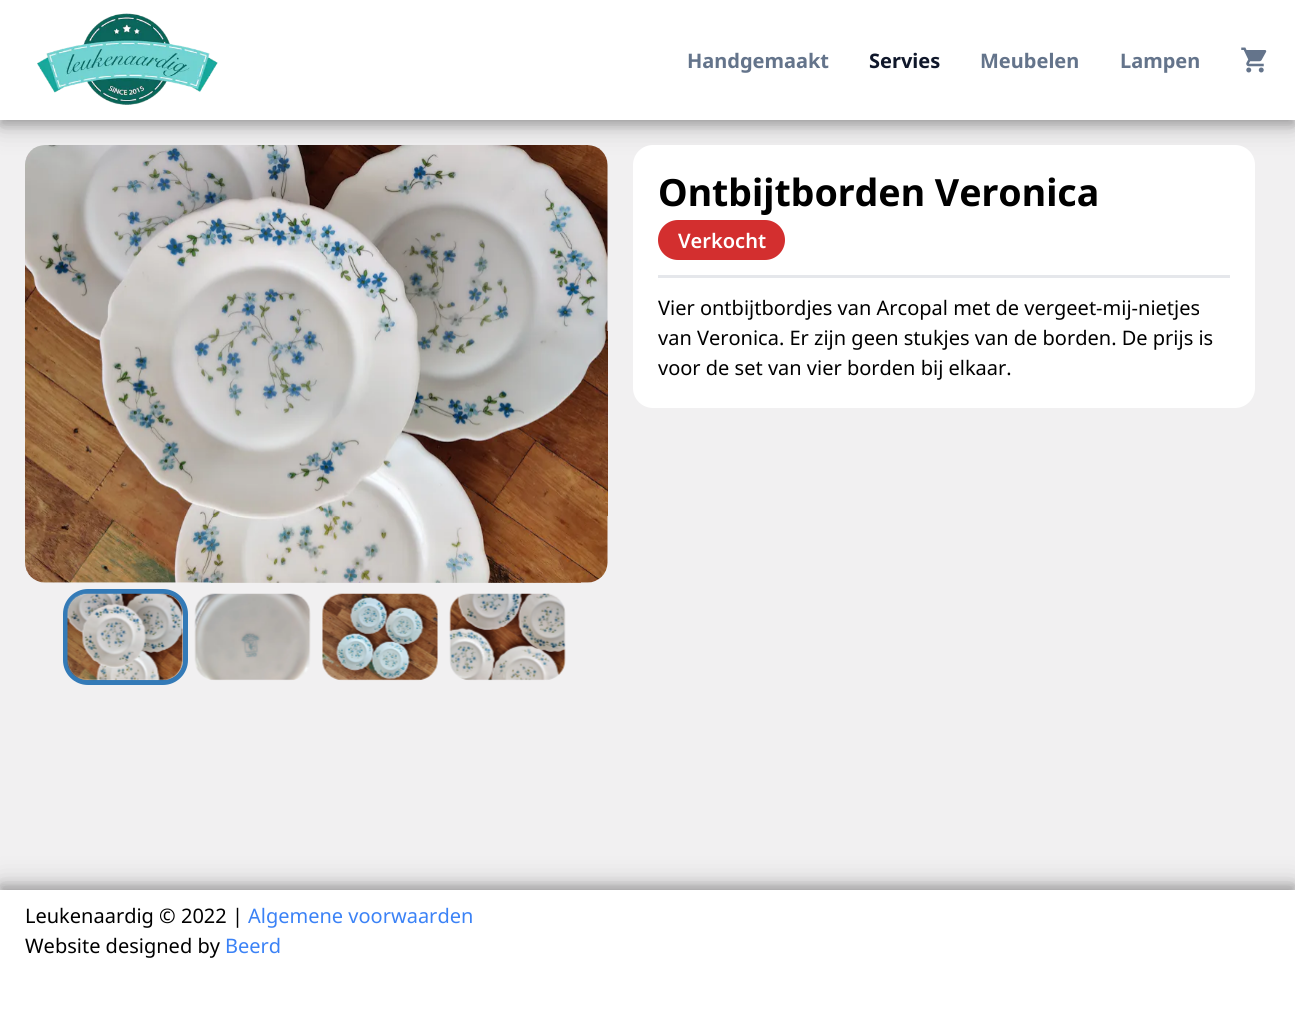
import math
import cairo

surface = cairo.ImageSurface(cairo.FORMAT_RGB24, 1295, 1010)
cr = cairo.Context(surface)
options = cairo.FontOptions()
options.set_hint_metrics(cairo.HINT_METRICS_OFF)
options.set_hint_style(cairo.HINT_STYLE_NONE)
cr.set_font_options(options)
cr.set_miter_limit(4)


def rgb(code):
    cr.set_source_rgb(*(v / 255 for v in bytes.fromhex(code[-6:])))


def rrect(x, y, w, h, r):
    cr.new_sub_path()
    for i, (u, v) in enumerate([(x + w - r, y + h - r), (x + r, y + h - r), (x + r, y + r), (x + w - r, y + r)]):
        cr.arc(u, v, r, i * math.pi / 2, (i + 1) * math.pi / 2)
    cr.close_path()


def soft_shadow(x, y, w, h, r, blur, alpha):
    cr.push_group_with_content(cairo.CONTENT_ALPHA)
    cr.set_operator(cairo.OPERATOR_SOURCE)
    for i in range(15, -16, -2):
        e = blur * i / 6
        if min(w, h) + 2 * e > 0:
            cr.set_source_rgba(0, 0, 0, alpha * math.erfc((i - 1) / 8.5) / 2)
            rrect(x - e, y - e, w + 2 * e, h + 2 * e, max(0, min(r + e + blur * .6, min(w, h) / 2 + e)))
            cr.fill()
    cr.mask(cr.pop_group())


def image(path, x, y, w, h):
    cr.save()
    cr.set_source_surface(cairo.ImageSurface.create_from_png(path), x, y)
    cr.rectangle(x, y, w, h)
    cr.fill()
    cr.restore()


rgb("#f1f0f1")
cr.paint()
rgb("#000000")
soft_shadow(0, 8, 1295, 120, 0, 12.5, 0.19)
soft_shadow(0, 5, 1295, 120, 0, 5, 0.2)
rgb("#ffffff")
cr.rectangle(0, 0, 1295, 120)
cr.fill()
image("img/1.png", 37, 13, 181, 92)
image("img/2.png", 1241, 47, 26, 26)
image("img/3.png", 25, 145, 583, 438)
rrect(65.5, 591.5, 120, 91, 22.5)
rgb("#337ab7")
cr.set_line_width(5)
cr.stroke()
image("img/4.png", 67, 593, 116, 88)
image("img/5.png", 194, 593, 117, 88)
image("img/6.png", 322, 593, 116, 88)
image("img/7.png", 449, 593, 117, 88)
rgb("#ffffff")
rrect(633, 145, 622, 263, 20)
cr.fill()
rgb("#d32f2f")
rrect(658, 220, 127, 40, 20)
cr.fill()
rgb("#e5e7eb")
cr.rectangle(658, 275, 572, 3)
cr.fill()
rgb("#000000")
soft_shadow(0, 883, 1295, 120, 0, 12.5, 0.19)
soft_shadow(0, 885, 1295, 120, 0, 5, 0.2)
rgb("#ffffff")
cr.rectangle(0, 890, 1295, 120)
cr.fill()
cr.select_font_face("Noto Sans", cairo.FONT_SLANT_NORMAL, cairo.FONT_WEIGHT_BOLD)
cr.set_font_size(20)
rgb("#64748b")
cr.move_to(687, 68)
cr.show_text("Handgemaakt")
rgb("#0f172a")
cr.move_to(869, 68)
cr.show_text("Servies")
rgb("#64748b")
cr.move_to(980, 68)
cr.show_text("Meubelen")
cr.move_to(1120, 68)
cr.show_text("Lampen")
cr.set_font_size(37.5)
rgb("#000000")
cr.move_to(658, 206)
cr.show_text("Ontbijtborden Veronica")
cr.select_font_face("Noto Sans SemiBold")
cr.set_font_size(20)
rgb("#ffffff")
cr.move_to(678, 248)
cr.show_text("Verkocht")
cr.select_font_face("Noto Sans")
rgb("#000000")
for x, y, s in [
    (658, 315, "Vier ontbijtbordjes van Arcopal met de vergeet-mij-nietjes"),
    (658, 345, "van Veronica. Er zijn geen stukjes van de borden. De prijs is"),
    (658, 375, "voor de set van vier borden bij elkaar."),
    (25, 923, "Leukenaardig © 2022 |"),
]:
    cr.move_to(x, y)
    cr.show_text(s)
rgb("#3b82f6")
cr.move_to(248, 923)
cr.show_text("Algemene voorwaarden")
rgb("#000000")
cr.move_to(25, 953)
cr.show_text("Website designed by")
rgb("#3b82f6")
cr.move_to(225, 953)
cr.show_text("Beerd")
surface.write_to_png("page.png")
